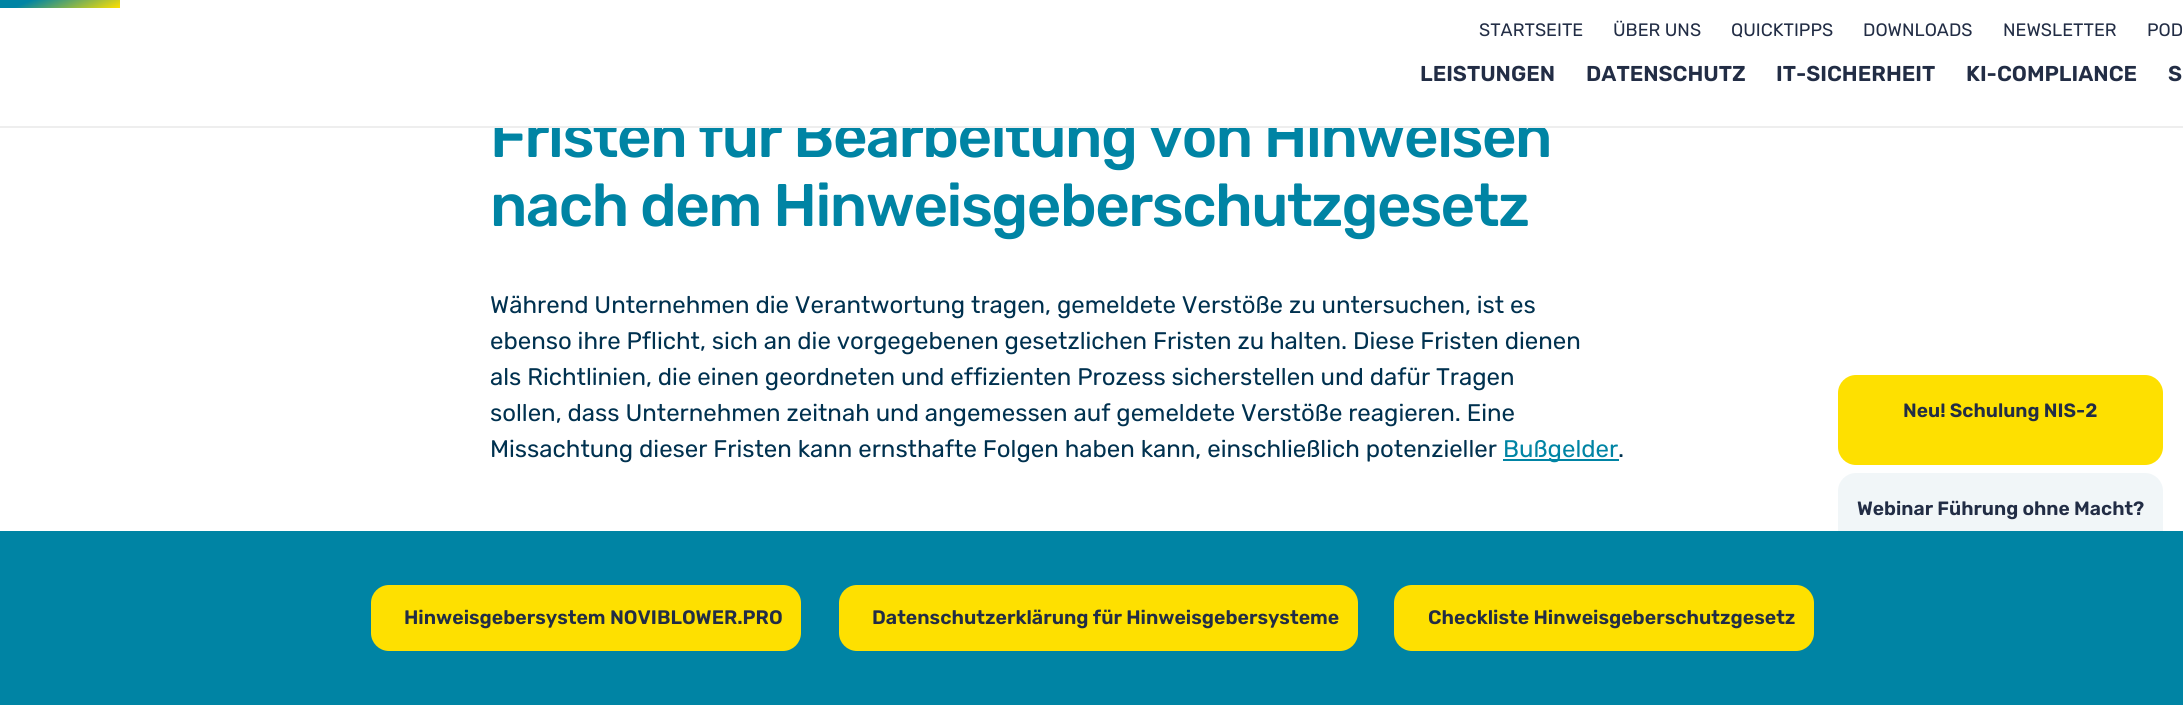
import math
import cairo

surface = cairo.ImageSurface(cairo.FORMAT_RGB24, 2183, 705)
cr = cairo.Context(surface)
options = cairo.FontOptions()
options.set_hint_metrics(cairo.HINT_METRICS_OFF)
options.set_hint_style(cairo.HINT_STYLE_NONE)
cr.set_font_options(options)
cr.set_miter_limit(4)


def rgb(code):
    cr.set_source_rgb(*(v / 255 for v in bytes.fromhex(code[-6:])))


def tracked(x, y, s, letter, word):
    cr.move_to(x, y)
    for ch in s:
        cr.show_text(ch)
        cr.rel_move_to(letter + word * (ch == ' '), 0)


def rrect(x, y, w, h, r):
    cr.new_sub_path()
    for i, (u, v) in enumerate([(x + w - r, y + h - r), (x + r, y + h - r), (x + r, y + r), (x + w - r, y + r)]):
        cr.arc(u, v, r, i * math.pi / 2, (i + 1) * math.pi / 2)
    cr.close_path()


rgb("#ffffff")
cr.paint()
gradient = cairo.LinearGradient(49, -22, 71, 29)
gradient.add_color_stop_rgba(0.24, 0, 0.518, 0.643, 1)
gradient.add_color_stop_rgba(1, 0.996, 0.878, 0, 1)
cr.set_source(gradient)
cr.rectangle(0, 0, 120, 8)
cr.fill()
rgb("#0084a4")
cr.rectangle(1503, 459, 116, 2)
cr.fill()
rgb("#fee000")
rrect(1840.5, 377.5, 320, 85, 15.5)
cr.fill_preserve()
cr.set_line_width(5)
cr.stroke()
rgb("#f1f6f8")
rrect(1840.5, 475.5, 320, 85, 15.5)
cr.fill_preserve()
cr.stroke()
rgb("#0084a4")
cr.rectangle(0, 531, 2183, 174)
cr.fill()
rgb("#fee000")
rrect(373.5, 587.5, 425, 61, 15.5)
cr.fill_preserve()
cr.stroke()
rrect(841.5, 587.5, 514, 61, 15.5)
cr.fill_preserve()
cr.stroke()
rrect(1396.5, 587.5, 415, 61, 15.5)
cr.fill_preserve()
cr.stroke()
cr.select_font_face("Rubik Light")
cr.set_font_size(18)
rgb("#222d45")
for x, y, s in [
    (1479, 36, "STARTSEITE"),
    (1613, 36, "ÜBER UNS"),
    (1731, 36, "QUICKTIPPS"),
    (1863, 36, "DOWNLOADS"),
    (2003, 36, "NEWSLETTER"),
    (2147, 36, "POD"),
]:
    cr.move_to(x, y)
    cr.show_text(s)
cr.select_font_face("Rubik SemiBold")
cr.set_font_size(21.5)
for x, y, s in [
    (1420, 81, "LEISTUNGEN"),
    (1586, 81, "DATENSCHUTZ"),
    (1776, 81, "IT-SICHERHEIT"),
    (1966, 81, "KI-COMPLIANCE"),
    (2168, 81, "S"),
]:
    cr.move_to(x, y)
    cr.show_text(s)
cr.select_font_face("Rubik Medium")
cr.set_font_size(60)
rgb("#0084a4")
tracked(490, 157, "Fristen für Bearbeitung von Hinweisen", -1.5, 0)
rgb("#eeeeee")
cr.rectangle(0, 126, 2183, 2)
cr.fill()
rgb("#ffffff")
cr.rectangle(494, 112, 1048, 14)
cr.fill()
rgb("#0084a4")
tracked(490, 226, "nach dem Hinweisgeberschutzgesetz", -1.5, 0)
cr.select_font_face("Rubik Light")
cr.set_font_size(24)
rgb("#00314f")
for x, y, s in [
    (490, 313, "Während Unternehmen die Verantwortung tragen, gemeldete Verstöße zu untersuchen, ist es"),
    (490, 349, "ebenso ihre Pflicht, sich an die vorgegebenen gesetzlichen Fristen zu halten. Diese Fristen dienen"),
    (490, 385, "als Richtlinien, die einen geordneten und effizienten Prozess sicherstellen und dafür Tragen"),
    (490, 421, "sollen, dass Unternehmen zeitnah und angemessen auf gemeldete Verstöße reagieren. Eine"),
    (490, 457, "Missachtung dieser Fristen kann ernsthafte Folgen haben kann, einschließlich potenzieller"),
]:
    cr.move_to(x, y)
    cr.show_text(s)
rgb("#0084a4")
cr.move_to(1503, 457)
cr.show_text("Bußgelder")
rgb("#00314f")
cr.move_to(1618, 457)
cr.show_text(".")
cr.select_font_face("Rubik SemiBold")
cr.set_font_size(19.25)
rgb("#222d45")
cr.move_to(1903, 417)
cr.show_text("Neu! Schulung NIS-2")
cr.move_to(1857, 515)
cr.show_text("Webinar Führung ohne Macht?")
cr.set_font_size(19.5)
for x, y, s in [
    (404, 624, "Hinweisgebersystem NOVIBLOWER.PRO"),
    (872, 624, "Datenschutzerklärung für Hinweisgebersysteme"),
    (1428, 624, "Checkliste Hinweisgeberschutzgesetz"),
]:
    cr.move_to(x, y)
    cr.show_text(s)
surface.write_to_png("page.png")
